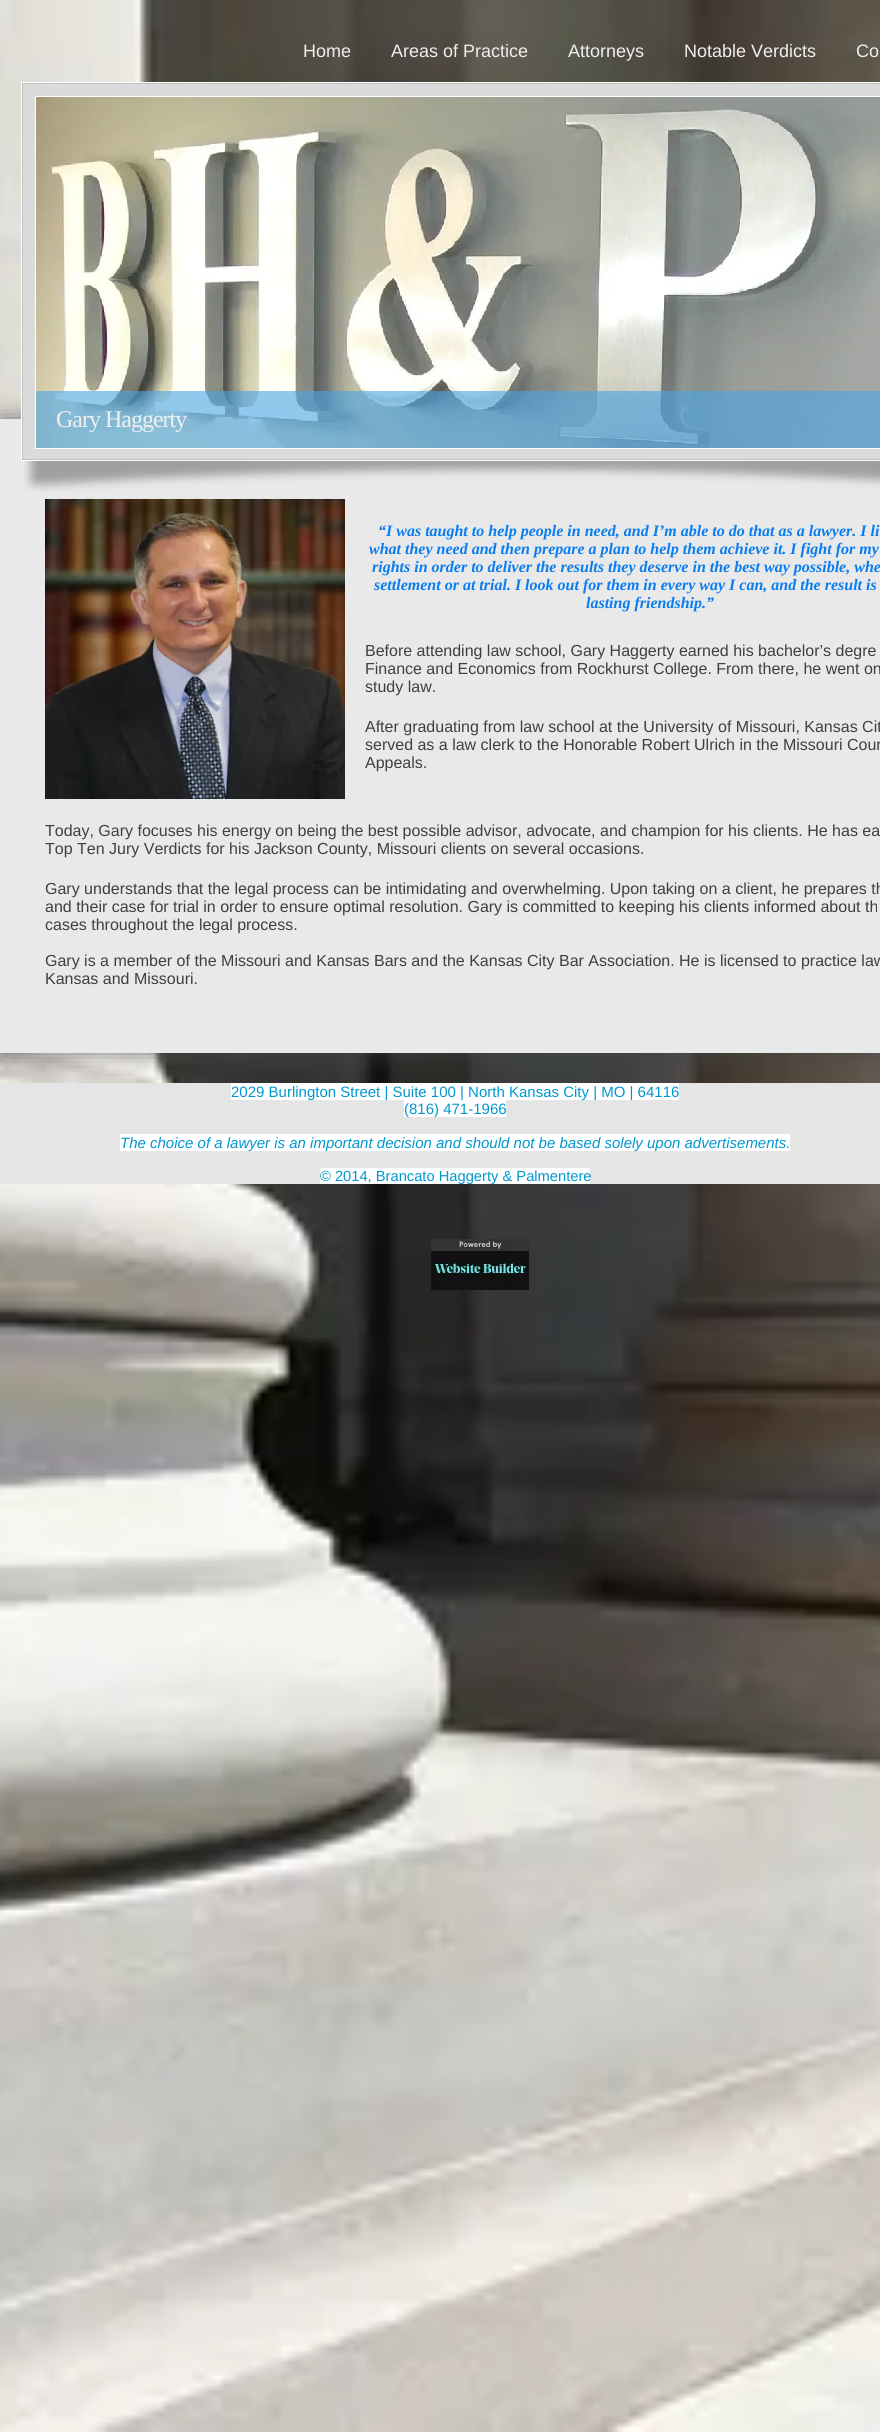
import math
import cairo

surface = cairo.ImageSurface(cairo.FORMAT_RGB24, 880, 2432)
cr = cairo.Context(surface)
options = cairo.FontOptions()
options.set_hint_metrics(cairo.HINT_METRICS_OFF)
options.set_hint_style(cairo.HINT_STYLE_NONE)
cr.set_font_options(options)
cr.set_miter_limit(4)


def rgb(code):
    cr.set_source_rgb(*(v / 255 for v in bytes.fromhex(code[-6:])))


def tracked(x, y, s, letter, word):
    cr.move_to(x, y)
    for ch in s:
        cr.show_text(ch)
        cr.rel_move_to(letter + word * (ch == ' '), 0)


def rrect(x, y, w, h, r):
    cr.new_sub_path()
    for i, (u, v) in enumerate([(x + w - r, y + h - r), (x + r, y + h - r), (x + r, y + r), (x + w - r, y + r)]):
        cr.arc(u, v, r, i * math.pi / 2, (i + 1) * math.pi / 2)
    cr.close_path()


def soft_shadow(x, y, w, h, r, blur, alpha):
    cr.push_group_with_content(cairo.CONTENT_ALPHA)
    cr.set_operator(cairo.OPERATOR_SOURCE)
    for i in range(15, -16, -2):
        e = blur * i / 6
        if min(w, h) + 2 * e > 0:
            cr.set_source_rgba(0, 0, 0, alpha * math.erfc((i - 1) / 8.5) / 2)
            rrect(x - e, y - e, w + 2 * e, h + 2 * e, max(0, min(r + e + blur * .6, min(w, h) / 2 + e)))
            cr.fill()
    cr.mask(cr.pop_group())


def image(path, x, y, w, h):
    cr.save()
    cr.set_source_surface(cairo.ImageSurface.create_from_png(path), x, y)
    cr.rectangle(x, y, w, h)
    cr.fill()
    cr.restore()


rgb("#ffffff")
cr.paint()
image("img/1.png", 0, 0, 880, 2432)
image("img/2.png", 212, 0, 457, 82)
rgb("#e5e5e5")
cr.rectangle(0, 1083, 880, 101)
cr.fill()
rgb("#ffffff")
cr.rectangle(231, 1083, 448, 17)
cr.fill()
rgb("#434548")
soft_shadow(0, 419, 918, 634, 0, 12.5, 0.75)
rgb("#e9e9e9")
cr.rectangle(0, 419, 880, 634)
cr.fill()
rgb("#dbdbdb")
cr.rectangle(22.5, 83.5, 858, 376)
cr.fill_preserve()
rgb("#c1c1c1")
cr.set_line_width(1)
cr.stroke()
cr.rectangle(21.5, 82.5, 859, 378)
rgb("#ffffff")
cr.stroke()
image("img/3.png", 36, 97, 844, 351)
cr.rectangle(35.5, 96.5, 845, 352)
cr.stroke()
cr.set_source_rgba(0.286, 0.651, 0.906, 0.6)
cr.rectangle(36, 391, 844, 57)
cr.fill()
image("img/4.png", 24, 461, 856, 31)
image("img/5.png", 45, 499, 300, 300)
for x, y, w, h, color in [
    (404, 1100, 102, 17, "#ffffff"),
    (120, 1134, 670, 17, "#ffffff"),
    (320, 1168, 270, 16, "#ffffff"),
]:
    rgb(color)
    cr.rectangle(x, y, w, h)
    cr.fill()
image("img/6.png", 431, 1239, 98, 51)
cr.select_font_face("Liberation Sans")
cr.set_font_size(18)
rgb("#efefef")
for x, y, s in [
    (303, 57, "Home"),
    (391, 57, "Areas of Practice"),
    (568, 57, "Attorneys"),
    (684, 57, "Notable Verdicts"),
    (856, 57, "Co"),
]:
    cr.move_to(x, y)
    cr.show_text(s)
cr.select_font_face("Liberation Serif")
cr.set_font_size(24)
tracked(56, 427, "Gary Haggerty", -1, 0)
cr.select_font_face("Liberation Serif", cairo.FONT_SLANT_ITALIC, cairo.FONT_WEIGHT_BOLD)
cr.set_font_size(16)
rgb("#097df0")
for x, y, s in [
    (378, 536, "“I was taught to help people in need, and I’m able to do that as a lawyer. I li"),
    (369, 554, "what they need and then prepare a plan to help them achieve it. I fight for my"),
    (372, 572, "rights in order to deliver the results they deserve in the best way possible, whe"),
    (374, 590, "settlement or at trial. I look out for them in every way I can, and the result is"),
    (586, 608, "lasting friendship.”"),
]:
    cr.move_to(x, y)
    cr.show_text(s)
cr.select_font_face("Liberation Sans")
rgb("#3f3f3f")
for x, y, s in [
    (365, 656, "Before attending law school, Gary Haggerty earned his bachelor’s degre"),
    (365, 674, "Finance and Economics from Rockhurst College. From there, he went on"),
    (365, 692, "study law."),
    (365, 732, "After graduating from law school at the University of Missouri, Kansas Cit"),
    (365, 750, "served as a law clerk to the Honorable Robert Ulrich in the Missouri Cour"),
    (365, 768, "Appeals."),
    (45, 836, "Today, Gary focuses his energy on being the best possible advisor, advocate, and champion for his clients. He has ea"),
    (45, 854, "Top Ten Jury Verdicts for his Jackson County, Missouri clients on several occasions."),
    (45, 894, "Gary understands that the legal process can be intimidating and overwhelming. Upon taking on a client, he prepares th"),
    (45, 912, "and their case for trial in order to ensure optimal resolution. Gary is committed to keeping his clients informed about th"),
    (45, 930, "cases throughout the legal process."),
    (45, 966, "Gary is a member of the Missouri and Kansas Bars and the Kansas City Bar Association. He is licensed to practice law"),
    (45, 984, "Kansas and Missouri."),
]:
    cr.move_to(x, y)
    cr.show_text(s)
cr.set_font_size(15)
rgb("#0097d0")
cr.move_to(231, 1097)
cr.show_text("2029 Burlington Street | Suite 100 | North Kansas City | MO | 64116")
cr.move_to(404, 1114)
cr.show_text("(816) 471-1966")
cr.select_font_face("Liberation Sans", cairo.FONT_SLANT_ITALIC)
cr.move_to(120, 1148)
cr.show_text("The choice of a lawyer is an important decision and should not be based solely upon advertisements.")
cr.select_font_face("Liberation Sans")
cr.set_font_size(14.7)
cr.move_to(320, 1181)
cr.show_text("© 2014, Brancato Haggerty & Palmentere")
surface.write_to_png("page.png")
